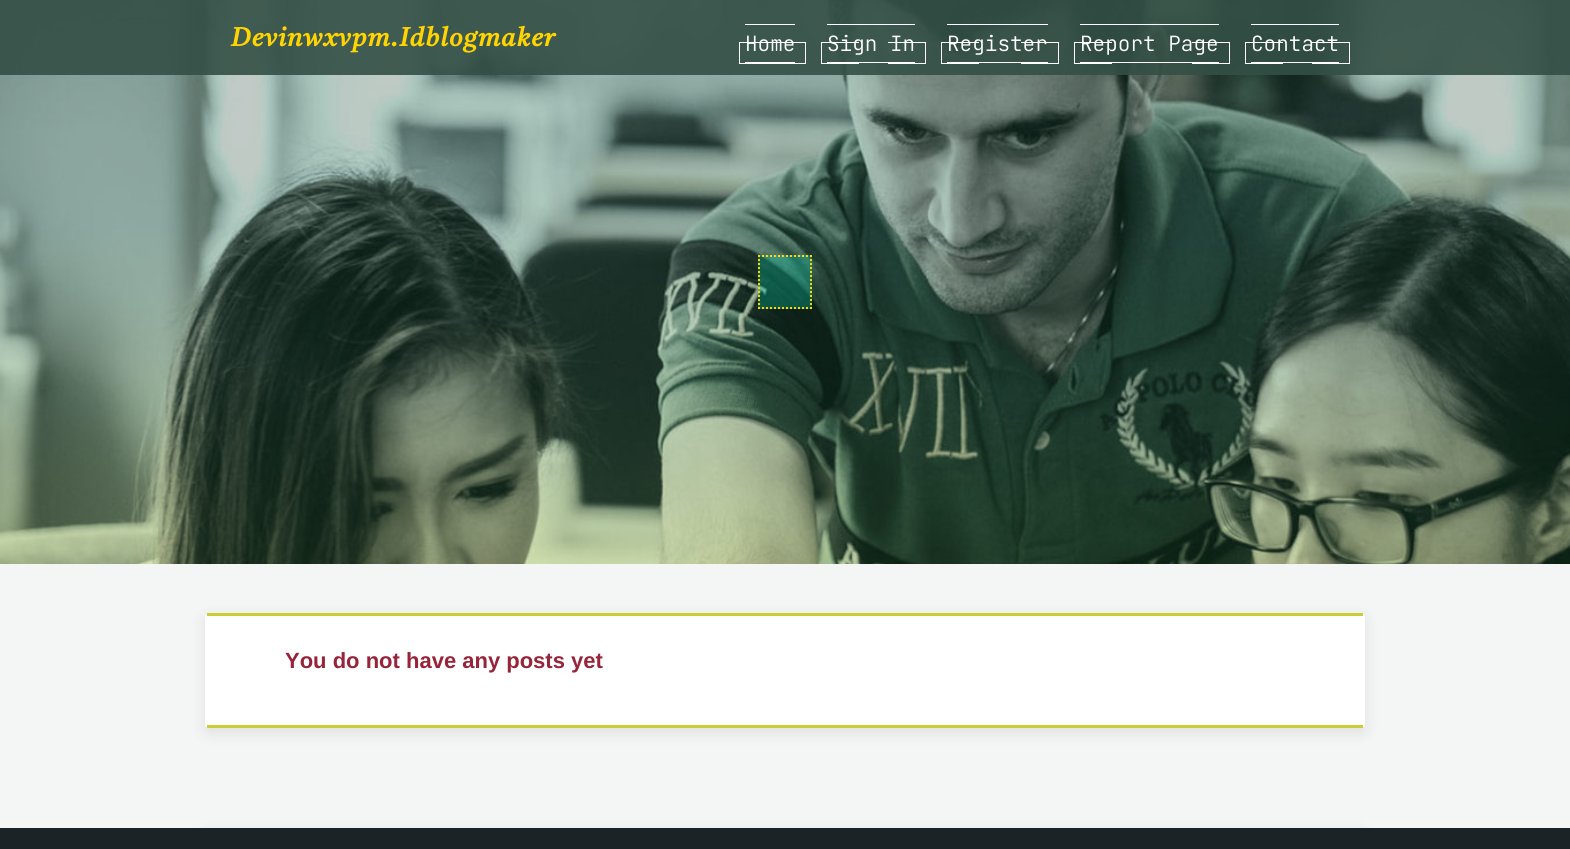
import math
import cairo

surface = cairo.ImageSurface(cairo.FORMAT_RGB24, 1570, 849)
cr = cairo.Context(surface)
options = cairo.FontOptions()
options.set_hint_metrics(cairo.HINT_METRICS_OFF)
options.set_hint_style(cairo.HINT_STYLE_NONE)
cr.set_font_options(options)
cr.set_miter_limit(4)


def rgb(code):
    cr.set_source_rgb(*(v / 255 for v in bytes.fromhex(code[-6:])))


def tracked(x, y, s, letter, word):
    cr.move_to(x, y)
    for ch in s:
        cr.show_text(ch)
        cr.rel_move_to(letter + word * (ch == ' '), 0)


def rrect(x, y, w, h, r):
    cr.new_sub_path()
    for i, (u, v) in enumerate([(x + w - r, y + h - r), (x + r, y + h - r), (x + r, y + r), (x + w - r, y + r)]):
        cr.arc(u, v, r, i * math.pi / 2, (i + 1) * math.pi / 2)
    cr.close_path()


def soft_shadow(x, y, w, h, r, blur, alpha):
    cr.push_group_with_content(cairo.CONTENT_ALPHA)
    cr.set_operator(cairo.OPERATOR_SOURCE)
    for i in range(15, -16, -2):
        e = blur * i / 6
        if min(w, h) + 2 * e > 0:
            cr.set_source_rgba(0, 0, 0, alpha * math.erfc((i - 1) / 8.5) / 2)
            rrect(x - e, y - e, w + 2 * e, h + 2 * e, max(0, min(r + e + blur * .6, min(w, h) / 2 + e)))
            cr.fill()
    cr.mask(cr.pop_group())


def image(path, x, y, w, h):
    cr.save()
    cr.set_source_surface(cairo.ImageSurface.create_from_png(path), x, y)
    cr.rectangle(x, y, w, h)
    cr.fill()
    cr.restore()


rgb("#f4f6f5")
cr.paint()
image("img/1.png", 0, 0, 1570, 564)
cr.set_source_rgba(0.2, 0.31, 0.271, 0.9)
cr.rectangle(0, 0, 1570, 75)
cr.fill()
rgb("#ffffff")
cr.rectangle(739, 42, 67, 1)
cr.rectangle(739, 63, 29, 1)
cr.rectangle(739, 42, 1, 22)
cr.rectangle(745, 24, 50, 1)
cr.rectangle(745, 62, 50, 1)
cr.rectangle(805, 42, 1, 22)
cr.rectangle(768, 63, 38, 1)
cr.rectangle(821, 42, 38, 1)
cr.rectangle(821, 63, 38, 1)
cr.rectangle(821, 42, 1, 22)
cr.rectangle(827, 24, 88, 1)
cr.rectangle(827, 62, 88, 1)
cr.rectangle(888, 42, 38, 1)
cr.rectangle(925, 42, 1, 22)
cr.rectangle(888, 63, 38, 1)
cr.rectangle(941, 42, 38, 1)
cr.rectangle(941, 63, 38, 1)
cr.rectangle(941, 42, 1, 22)
cr.rectangle(947, 24, 101, 1)
cr.rectangle(947, 62, 101, 1)
cr.rectangle(1021, 42, 38, 1)
cr.rectangle(1058, 42, 1, 22)
cr.rectangle(1021, 63, 38, 1)
cr.rectangle(1074, 42, 38, 1)
cr.rectangle(1074, 63, 38, 1)
cr.rectangle(1074, 42, 1, 22)
cr.rectangle(1080, 24, 139, 1)
cr.rectangle(1080, 62, 139, 1)
cr.rectangle(1192, 42, 38, 1)
cr.rectangle(1229, 42, 1, 22)
cr.rectangle(1192, 63, 38, 1)
cr.rectangle(1245, 42, 38, 1)
cr.rectangle(1245, 63, 38, 1)
cr.rectangle(1245, 42, 1, 22)
cr.rectangle(1251, 24, 88, 1)
cr.rectangle(1251, 62, 88, 1)
cr.rectangle(1312, 42, 38, 1)
cr.rectangle(1349, 42, 1, 22)
cr.rectangle(1312, 63, 38, 1)
cr.fill()
cr.set_source_rgba(0.039, 0.824, 0.678, 0.3)
cr.rectangle(758, 255, 54, 54)
cr.fill()
cr.new_path()
cr.move_to(758, 256)
cr.line_to(812, 256)
cr.move_to(811, 255)
cr.line_to(811, 309)
cr.move_to(758, 308)
cr.line_to(812, 308)
cr.move_to(759, 255)
cr.line_to(759, 309)
rgb("#ffd400")
cr.set_dash([2, 2])
cr.stroke()
rgb("#191919")
soft_shadow(205, 618, 1160, 115, 4, 7, 0.1)
rgb("#ffffff")
rrect(205, 613, 1160, 115, 4)
cr.fill()
rgb("#cccc33")
cr.rectangle(207, 613, 1156, 3)
cr.fill()
cr.rectangle(207, 725, 1156, 3)
cr.fill()
rgb("#191919")
soft_shadow(205, 833, 1160, 14, 4, 7, 0.1)
rgb("#1c2326")
cr.rectangle(0, 828, 1570, 21)
cr.fill()
cr.select_font_face("Castoro", cairo.FONT_SLANT_ITALIC, cairo.FONT_WEIGHT_BOLD)
cr.set_font_size(26)
rgb("#ffd400")
tracked(231, 46, "Devinwxvpm.Idblogmaker", 1, 0)
cr.select_font_face("JetBrains Mono Light")
cr.set_font_size(21)
rgb("#ffffff")
for x, y, s in [
    (745, 51, "Home"),
    (827, 51, "Sign In"),
    (947, 51, "Register"),
    (1080, 51, "Report Page"),
    (1251, 51, "Contact"),
]:
    cr.move_to(x, y)
    cr.show_text(s)
cr.select_font_face("Liberation Sans", cairo.FONT_SLANT_NORMAL, cairo.FONT_WEIGHT_BOLD)
cr.set_font_size(22)
rgb("#96243a")
cr.move_to(285, 668)
cr.show_text("You do not have any posts yet")
surface.write_to_png("page.png")
